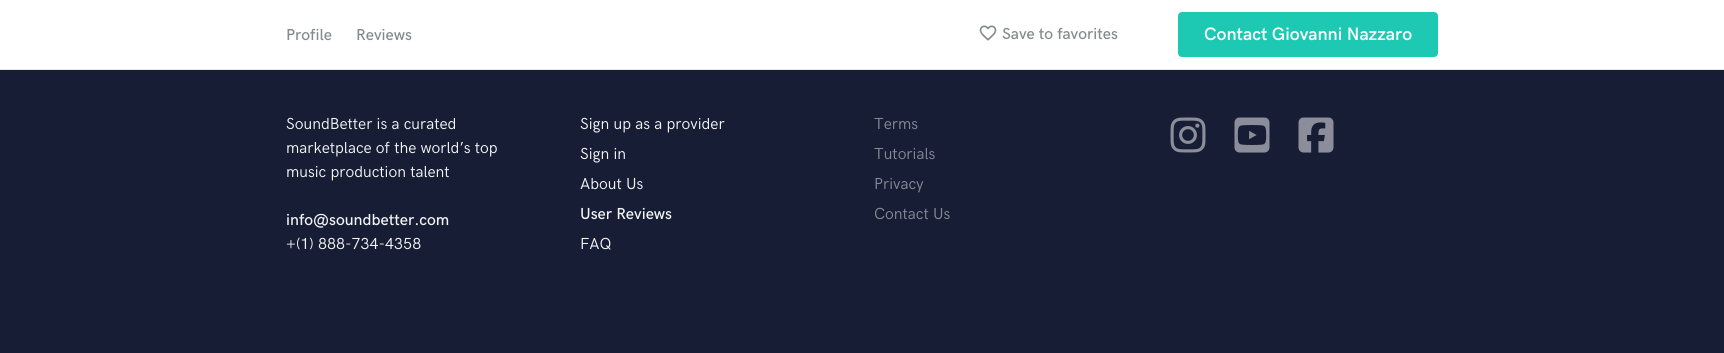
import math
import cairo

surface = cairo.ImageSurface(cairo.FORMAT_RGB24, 1724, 353)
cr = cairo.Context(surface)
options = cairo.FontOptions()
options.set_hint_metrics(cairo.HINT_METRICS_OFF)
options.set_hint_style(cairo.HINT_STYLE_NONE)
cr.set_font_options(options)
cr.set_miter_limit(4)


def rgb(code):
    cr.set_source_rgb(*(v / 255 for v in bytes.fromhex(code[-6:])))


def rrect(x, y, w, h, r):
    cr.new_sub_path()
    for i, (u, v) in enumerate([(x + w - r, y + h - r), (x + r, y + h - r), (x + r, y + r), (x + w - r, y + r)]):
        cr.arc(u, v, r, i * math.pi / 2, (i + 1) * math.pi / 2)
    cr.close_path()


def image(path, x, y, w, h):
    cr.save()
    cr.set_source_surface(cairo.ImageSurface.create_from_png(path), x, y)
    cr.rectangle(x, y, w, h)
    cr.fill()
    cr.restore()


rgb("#171d34")
cr.paint()
rgb("#ffffff")
cr.rectangle(0, 0, 1724, 69)
cr.fill()
rgb("#e6e6e6")
cr.rectangle(0, 69, 1724, 1)
cr.fill()
image("img/1.png", 979, 25, 18, 16)
rgb("#1ec9b4")
rrect(1179, 13, 258, 43, 3)
cr.fill_preserve()
cr.stroke()
image("img/2.png", 1170, 117, 36, 36)
image("img/3.png", 1234, 117, 36, 36)
image("img/4.png", 1298, 117, 36, 36)
cr.select_font_face("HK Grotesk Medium")
cr.set_font_size(16)
rgb("#838b8e")
for x, y, s in [
    (286, 40, "Profile"),
    (356, 40, "Reviews"),
    (1002, 39, "Save to favorites"),
]:
    cr.move_to(x, y)
    cr.show_text(s)
cr.select_font_face("HK Grotesk SemiBold")
cr.set_font_size(18)
rgb("#ffffff")
cr.move_to(1204, 40)
cr.show_text("Contact Giovanni Nazzaro")
cr.select_font_face("HK Grotesk")
cr.set_font_size(16)
rgb("#f3f4f5")
for x, y, s in [
    (286, 129, "SoundBetter is a curated"),
    (286, 153, "marketplace of the world’s top"),
    (286, 177, "music production talent"),
]:
    cr.move_to(x, y)
    cr.show_text(s)
cr.select_font_face("HK Grotesk Medium")
cr.move_to(286, 225)
cr.show_text("info@soundbetter.com")
cr.select_font_face("HK Grotesk")
for x, y, s in [
    (286, 249, "+(1) 888-734-4358"),
    (580, 129, "Sign up as a provider"),
    (580, 159, "Sign in"),
    (580, 189, "About Us"),
]:
    cr.move_to(x, y)
    cr.show_text(s)
cr.select_font_face("HK Grotesk Medium")
cr.move_to(580, 219)
cr.show_text("User Reviews")
cr.select_font_face("HK Grotesk")
cr.move_to(580, 249)
cr.show_text("FAQ")
rgb("#858895")
for x, y, s in [
    (874, 129, "Terms"),
    (874, 159, "Tutorials"),
    (874, 189, "Privacy"),
    (874, 219, "Contact Us"),
]:
    cr.move_to(x, y)
    cr.show_text(s)
surface.write_to_png("page.png")
